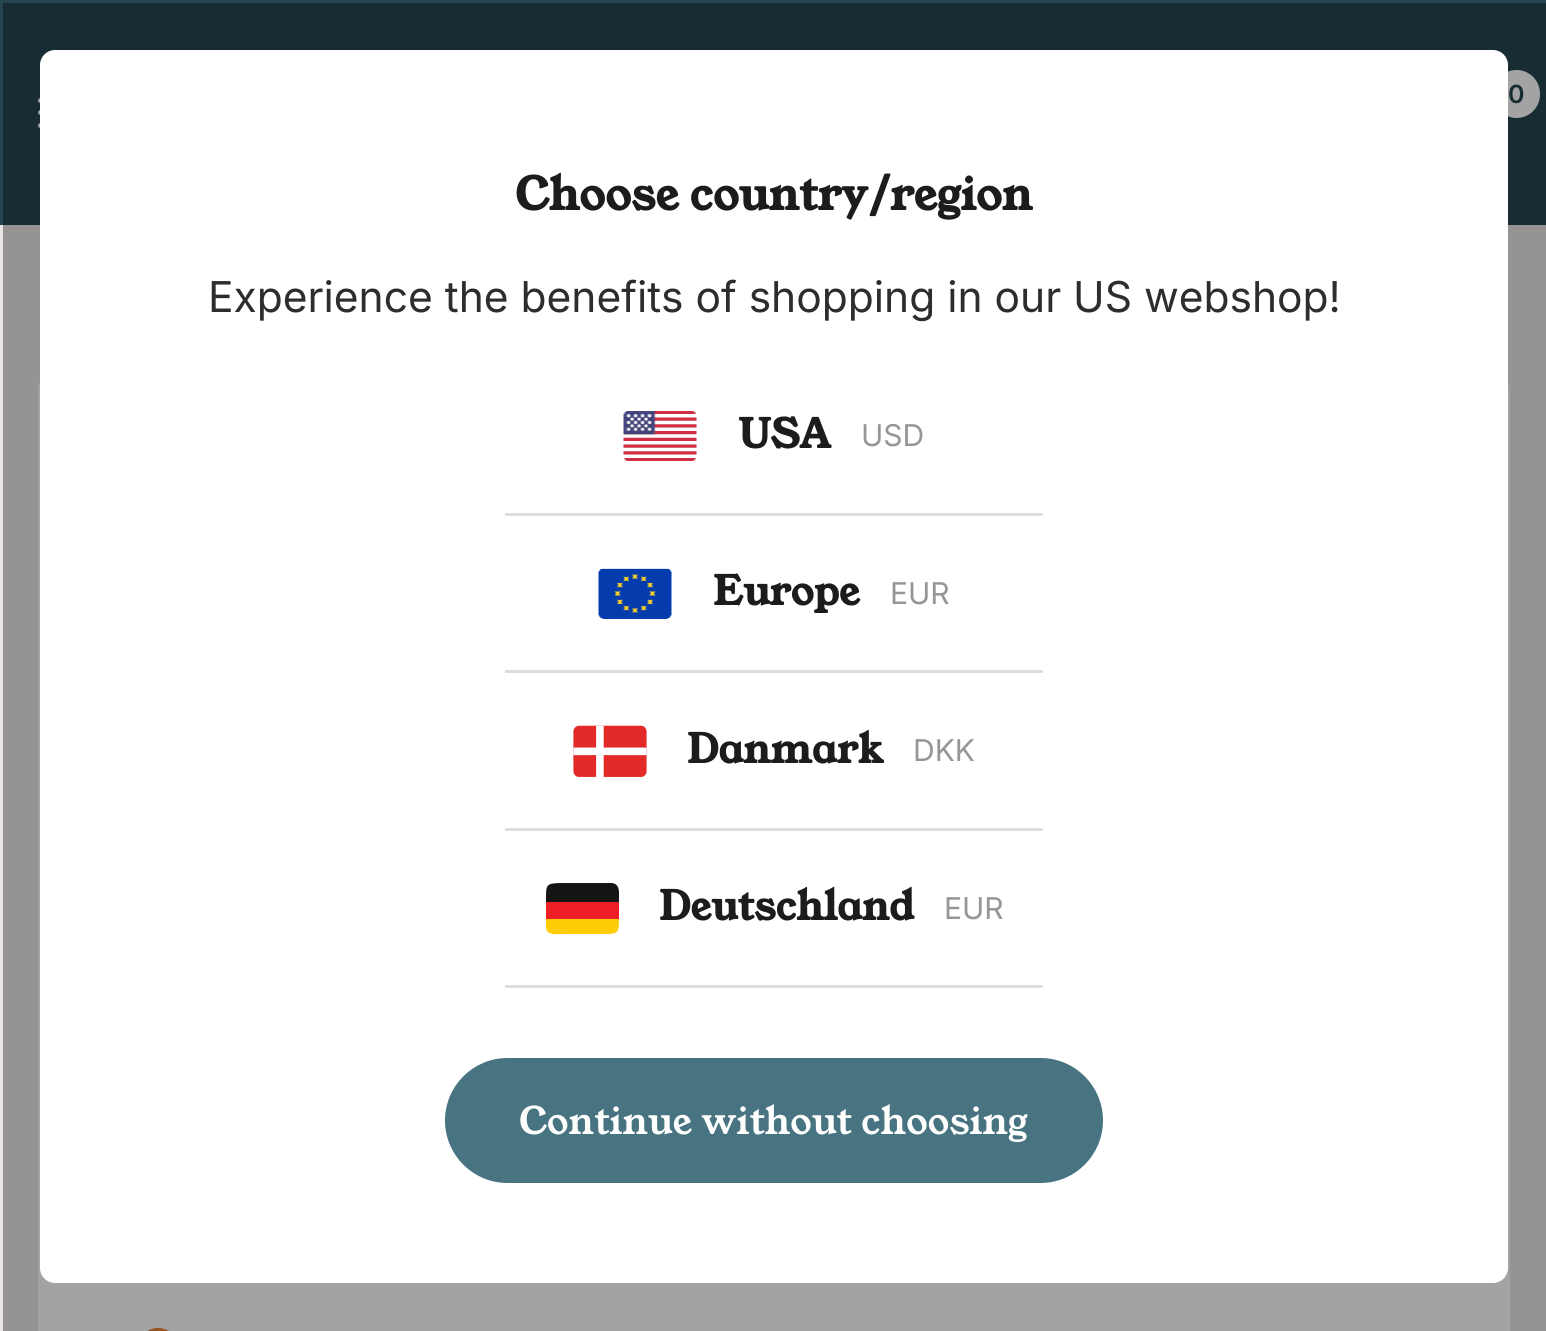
import math
import cairo

surface = cairo.ImageSurface(cairo.FORMAT_RGB24, 1546, 1331)
cr = cairo.Context(surface)
options = cairo.FontOptions()
options.set_hint_metrics(cairo.HINT_METRICS_OFF)
options.set_hint_style(cairo.HINT_STYLE_NONE)
cr.set_font_options(options)
cr.set_miter_limit(4)


def rgb(code):
    cr.set_source_rgb(*(v / 255 for v in bytes.fromhex(code[-6:])))


def rrect(x, y, w, h, r):
    cr.new_sub_path()
    for i, (u, v) in enumerate([(x + w - r, y + h - r), (x + r, y + h - r), (x + r, y + r), (x + w - r, y + r)]):
        cr.arc(u, v, r, i * math.pi / 2, (i + 1) * math.pi / 2)
    cr.close_path()


def image(path, x, y, w, h):
    cr.save()
    cr.set_source_surface(cairo.ImageSurface.create_from_png(path), x, y)
    cr.rectangle(x, y, w, h)
    cr.fill()
    cr.restore()


rgb("#ebe7e6")
cr.paint()
rgb("#26454f")
cr.rectangle(0, 0, 1546, 225)
cr.fill()
rgb("#182c33")
cr.rectangle(3, 3, 1543, 222)
cr.fill()
rgb("#a3a3a3")
rrect(1493, 70, 47, 48, 23.5)
cr.fill()
rrect(38, 98, 45, 5, 2.5)
cr.fill()
rrect(38, 110, 45, 5, 2.5)
cr.fill()
rrect(38, 123, 45, 5, 2.5)
cr.fill()
rgb("#969493")
cr.rectangle(3, 225, 1543, 1106)
cr.fill()
rgb("#a3a3a3")
rrect(38, 355, 1472, 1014, 38)
cr.fill()
rgb("#ffffff")
rrect(40, 50, 1468, 1233, 15)
cr.fill()
rgb("#dedede")
cr.rectangle(505, 513, 538, 3)
cr.fill()
image("img/1.png", 623, 411, 74, 50)
cr.rectangle(505, 670, 538, 3)
cr.fill()
image("img/2.png", 598, 568, 74, 51)
cr.rectangle(505, 828, 538, 3)
cr.fill()
image("img/3.png", 573, 725, 74, 52)
cr.rectangle(505, 985, 538, 3)
cr.fill()
rgb("#ffcd05")
cr.new_path()
cr.move_to(546, 927)
cr.curve_to(546, 936, 557, 934, 564, 934)
cr.line_to(601, 934)
cr.curve_to(618, 934, 619, 934, 619, 919)
cr.line_to(546, 919)
cr.close_path()
cr.fill()
rgb("#ed1f24")
cr.rectangle(546, 902, 73, 17)
cr.fill()
cr.save()
cr.rectangle(546, 872, 73, 73)
cr.clip()
rgb("#141414")
cr.new_path()
cr.move_to(611, 883)
cr.line_to(564, 883)
cr.curve_to(545, 883, 546, 884, 546, 902)
cr.line_to(619, 902)
cr.curve_to(619, 895, 621, 883, 611, 883)
cr.close_path()
cr.fill()
cr.restore()
rgb("#487481")
rrect(445, 1058, 658, 125, 62.5)
cr.fill()
rgb("#955120")
rrect(138, 1328, 40, 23, 20)
cr.fill()
cr.select_font_face("Inter SemiBold")
cr.set_font_size(25)
rgb("#182c33")
cr.move_to(1508, 103)
cr.show_text("0")
cr.select_font_face("Young Serif", cairo.FONT_SLANT_NORMAL, cairo.FONT_WEIGHT_BOLD)
cr.set_font_size(45)
rgb("#1a1c1d")
cr.move_to(515, 210)
cr.show_text("Choose country/region")
cr.select_font_face("Inter")
cr.set_font_size(42.5)
rgb("#2c2d2e")
cr.move_to(208, 312)
cr.show_text("Experience the benefits of shopping in our US webshop!")
cr.select_font_face("Young Serif", cairo.FONT_SLANT_NORMAL, cairo.FONT_WEIGHT_BOLD)
cr.set_font_size(40)
rgb("#1a1c1d")
cr.move_to(738, 448)
cr.show_text("USA")
cr.select_font_face("Inter")
cr.set_font_size(30)
rgb("#969697")
cr.move_to(861, 446)
cr.show_text("USD")
cr.select_font_face("Young Serif", cairo.FONT_SLANT_NORMAL, cairo.FONT_WEIGHT_BOLD)
cr.set_font_size(40)
rgb("#1a1c1d")
cr.move_to(713, 605)
cr.show_text("Europe")
cr.select_font_face("Inter")
cr.set_font_size(30)
rgb("#969697")
cr.move_to(890, 604)
cr.show_text("EUR")
cr.select_font_face("Young Serif", cairo.FONT_SLANT_NORMAL, cairo.FONT_WEIGHT_BOLD)
cr.set_font_size(40)
rgb("#1a1c1d")
cr.move_to(687, 763)
cr.show_text("Danmark")
cr.select_font_face("Inter")
cr.set_font_size(30)
rgb("#969697")
cr.move_to(913, 761)
cr.show_text("DKK")
cr.select_font_face("Young Serif", cairo.FONT_SLANT_NORMAL, cairo.FONT_WEIGHT_BOLD)
cr.set_font_size(40)
rgb("#1a1c1d")
cr.move_to(659, 920)
cr.show_text("Deutschland")
cr.select_font_face("Inter")
cr.set_font_size(30)
rgb("#969697")
cr.move_to(944, 919)
cr.show_text("EUR")
cr.select_font_face("Young Serif")
cr.set_font_size(37.5)
rgb("#ffffff")
cr.move_to(519, 1134)
cr.show_text("Continue without choosing")
surface.write_to_png("page.png")
